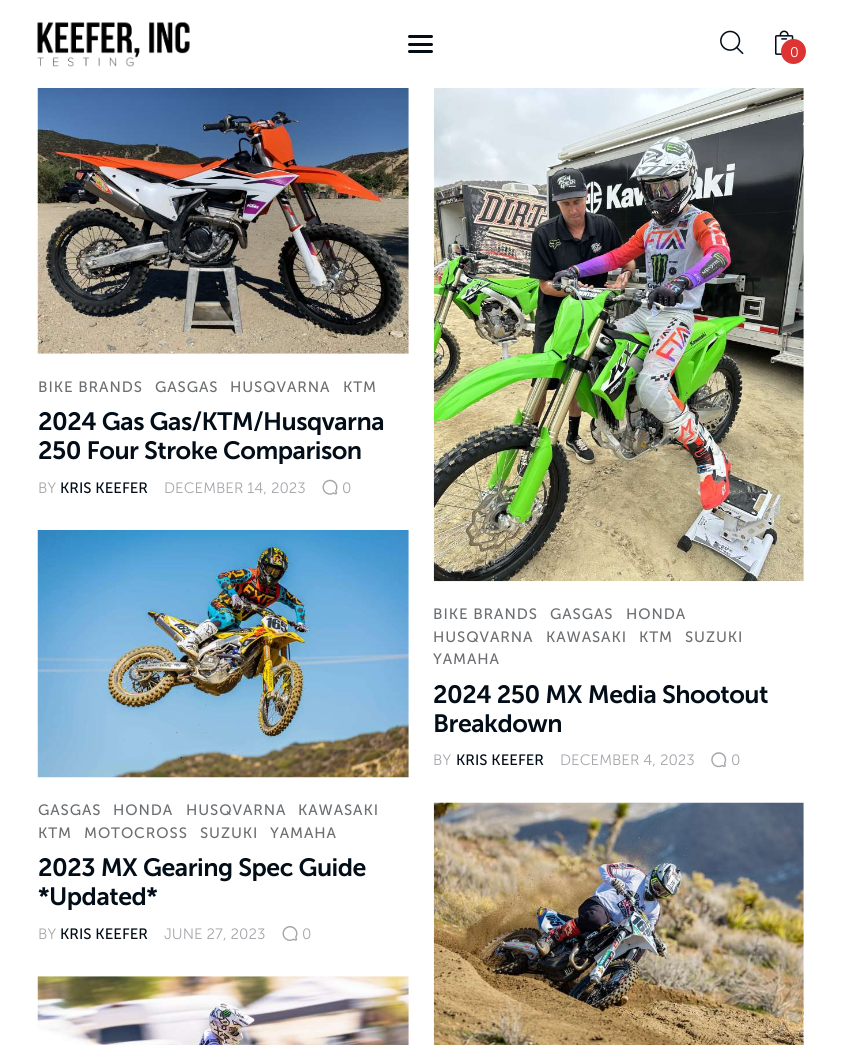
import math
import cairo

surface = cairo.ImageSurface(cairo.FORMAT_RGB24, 841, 1045)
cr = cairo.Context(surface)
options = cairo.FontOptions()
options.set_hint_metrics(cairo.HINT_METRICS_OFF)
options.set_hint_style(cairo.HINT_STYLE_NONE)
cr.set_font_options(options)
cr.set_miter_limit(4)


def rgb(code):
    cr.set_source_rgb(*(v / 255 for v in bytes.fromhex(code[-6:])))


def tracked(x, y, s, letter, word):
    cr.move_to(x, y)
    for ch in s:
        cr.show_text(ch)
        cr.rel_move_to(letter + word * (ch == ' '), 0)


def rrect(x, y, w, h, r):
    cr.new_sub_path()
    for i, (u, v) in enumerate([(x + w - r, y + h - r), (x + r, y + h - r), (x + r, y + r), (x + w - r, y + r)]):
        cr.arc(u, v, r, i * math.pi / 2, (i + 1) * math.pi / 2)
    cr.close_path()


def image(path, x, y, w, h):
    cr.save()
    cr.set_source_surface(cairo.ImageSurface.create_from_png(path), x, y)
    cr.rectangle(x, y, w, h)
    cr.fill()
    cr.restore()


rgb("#ffffff")
cr.paint()
image("img/1.png", 37, 22, 153, 45)
rgb("#020d18")
rrect(408, 35, 25, 3, 1.5)
cr.fill()
rrect(408, 43, 25, 3, 1.5)
cr.fill()
rrect(408, 50, 25, 3, 1.5)
cr.fill()
image("img/2.png", 720, 30, 24, 25)
image("img/3.png", 775, 30, 19, 25)
rgb("#dd3333")
cr.arc(793.5, 51.5, 12.5, 0, 2 * math.pi)
cr.fill()
image("img/4.png", 37, 88, 372, 266)
image("img/5.png", 322, 479, 16, 16)
image("img/6.png", 433, 88, 371, 494)
image("img/7.png", 711, 752, 16, 16)
image("img/8.png", 37, 530, 372, 248)
image("img/9.png", 282, 926, 16, 15)
image("img/10.png", 433, 802, 371, 243)
image("img/11.png", 37, 976, 372, 69)
cr.select_font_face("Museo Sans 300 Light")
cr.set_font_size(14)
rgb("#ffffff")
cr.move_to(790, 57)
cr.show_text("0")
cr.select_font_face("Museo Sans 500")
cr.set_font_size(15)
rgb("#6c6f72")
for x, y, s in [
    (38, 392, "BIKE BRANDS"),
    (155, 392, "GASGAS"),
    (230, 392, "HUSQVARNA"),
    (343, 392, "KTM"),
]:
    tracked(x, y, s, 0.9, 0)
cr.select_font_face("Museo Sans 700 SemiBold")
cr.set_font_size(25)
rgb("#020d18")
tracked(38, 430, "2024 Gas Gas/KTM/Husqvarna", -0.5, 0)
tracked(38, 459, "250 Four Stroke Comparison", -0.5, 0)
cr.select_font_face("Museo Sans 300 Light")
cr.set_font_size(15)
rgb("#a5a6aa")
cr.move_to(38, 493)
cr.show_text("BY")
cr.select_font_face("Museo Sans 500")
rgb("#020d18")
cr.move_to(60, 493)
cr.show_text("KRIS KEEFER")
cr.select_font_face("Museo Sans 300 Light")
rgb("#a5a6aa")
cr.move_to(164, 493)
cr.show_text("DECEMBER 14, 2023")
cr.move_to(342, 493)
cr.show_text("0")
cr.select_font_face("Museo Sans 500")
rgb("#6c6f72")
for x, y, s in [
    (433, 619, "BIKE BRANDS"),
    (550, 619, "GASGAS"),
    (626, 619, "HONDA"),
    (433, 642, "HUSQVARNA"),
    (546, 642, "KAWASAKI"),
    (639, 642, "KTM"),
    (685, 642, "SUZUKI"),
    (433, 664, "YAMAHA"),
]:
    tracked(x, y, s, 0.9, 0)
cr.select_font_face("Museo Sans 700 SemiBold")
cr.set_font_size(25)
rgb("#020d18")
tracked(433, 703, "2024 250 MX Media Shootout", -0.5, 0)
tracked(433, 732, "Breakdown", -0.5, 0)
cr.select_font_face("Museo Sans 300 Light")
cr.set_font_size(15)
rgb("#a5a6aa")
cr.move_to(433, 765)
cr.show_text("BY")
cr.select_font_face("Museo Sans 500")
rgb("#020d18")
cr.move_to(456, 765)
cr.show_text("KRIS KEEFER")
cr.select_font_face("Museo Sans 300 Light")
rgb("#a5a6aa")
cr.move_to(560, 765)
cr.show_text("DECEMBER 4, 2023")
cr.move_to(731, 765)
cr.show_text("0")
cr.select_font_face("Museo Sans 500")
rgb("#6c6f72")
for x, y, s in [
    (38, 815, "GASGAS"),
    (113, 815, "HONDA"),
    (186, 815, "HUSQVARNA"),
    (298, 815, "KAWASAKI"),
    (38, 838, "KTM"),
    (84, 838, "MOTOCROSS"),
    (200, 838, "SUZUKI"),
    (270, 838, "YAMAHA"),
]:
    tracked(x, y, s, 0.9, 0)
cr.select_font_face("Museo Sans 700 SemiBold")
cr.set_font_size(25)
rgb("#020d18")
tracked(38, 876, "2023 MX Gearing Spec Guide", -0.5, 0)
tracked(38, 905, "*Updated*", -0.5, 0)
cr.select_font_face("Museo Sans 300 Light")
cr.set_font_size(15)
rgb("#a5a6aa")
cr.move_to(38, 939)
cr.show_text("BY")
cr.select_font_face("Museo Sans 500")
rgb("#020d18")
cr.move_to(60, 939)
cr.show_text("KRIS KEEFER")
cr.select_font_face("Museo Sans 300 Light")
rgb("#a5a6aa")
cr.move_to(164, 939)
cr.show_text("JUNE 27, 2023")
cr.move_to(302, 939)
cr.show_text("0")
surface.write_to_png("page.png")
